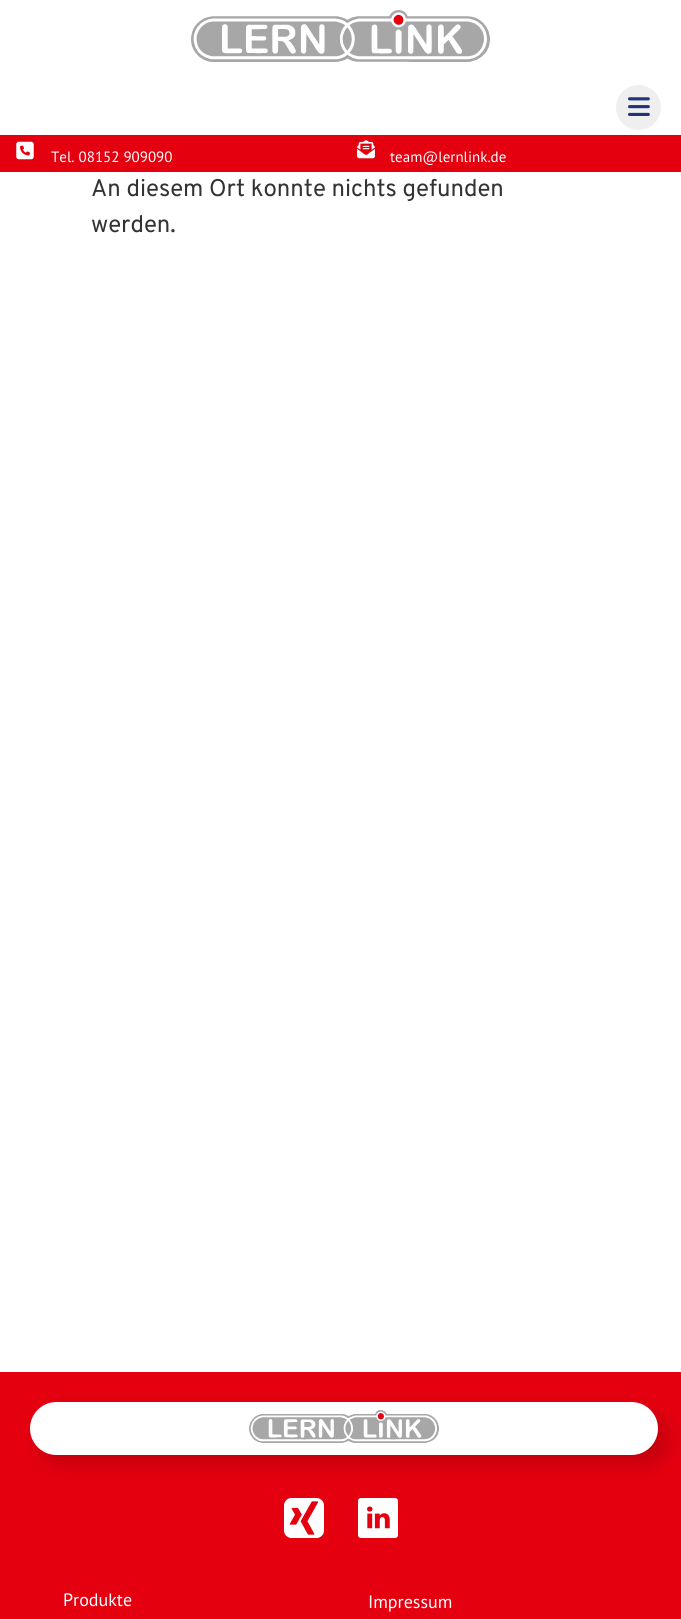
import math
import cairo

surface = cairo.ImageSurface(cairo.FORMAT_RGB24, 681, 1619)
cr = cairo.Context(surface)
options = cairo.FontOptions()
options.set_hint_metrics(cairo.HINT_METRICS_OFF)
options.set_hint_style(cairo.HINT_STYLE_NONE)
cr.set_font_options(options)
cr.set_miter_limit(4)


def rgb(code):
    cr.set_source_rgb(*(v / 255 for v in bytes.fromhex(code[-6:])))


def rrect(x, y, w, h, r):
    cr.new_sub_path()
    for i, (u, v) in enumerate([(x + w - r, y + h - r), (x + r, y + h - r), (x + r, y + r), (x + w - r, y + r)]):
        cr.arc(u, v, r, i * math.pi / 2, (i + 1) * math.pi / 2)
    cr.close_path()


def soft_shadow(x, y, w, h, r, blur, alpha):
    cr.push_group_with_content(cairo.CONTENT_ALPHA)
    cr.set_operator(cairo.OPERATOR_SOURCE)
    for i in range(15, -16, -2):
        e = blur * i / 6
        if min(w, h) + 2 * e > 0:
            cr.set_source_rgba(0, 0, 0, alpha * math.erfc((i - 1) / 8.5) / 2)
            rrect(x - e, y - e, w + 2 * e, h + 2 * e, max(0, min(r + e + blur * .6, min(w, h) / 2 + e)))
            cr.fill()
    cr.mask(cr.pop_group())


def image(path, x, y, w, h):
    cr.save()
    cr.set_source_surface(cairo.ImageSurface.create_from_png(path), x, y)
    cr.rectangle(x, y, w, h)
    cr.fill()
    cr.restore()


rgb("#ffffff")
cr.paint()
image("img/1.png", 191, 10, 299, 52)
rgb("#efefef")
cr.arc(638.5, 107.5, 22.5, 0, 2 * math.pi)
cr.fill()
image("img/2.png", 628, 97, 22, 19)
rgb("#e5000f")
cr.rectangle(0, 135, 681, 37)
cr.fill()
image("img/3.png", 16, 141, 18, 19)
image("img/4.png", 357, 140, 18, 19)
cr.rectangle(0, 1372, 681, 247)
cr.fill()
rgb("#000000")
soft_shadow(40, 1412, 628, 53, 26.5, 10, 0.15)
rgb("#ffffff")
rrect(30, 1402, 628, 53, 26.5)
cr.fill()
image("img/5.png", 249, 1410, 190, 33)
image("img/6.png", 284, 1498, 40, 40)
image("img/7.png", 358, 1498, 40, 40)
cr.select_font_face("PT Sans")
cr.set_font_size(15)
cr.move_to(51, 162)
cr.show_text("Tel. 08152 909090")
cr.move_to(390, 162)
cr.show_text("team@lernlink.de")
cr.select_font_face("Overpass")
cr.set_font_size(24)
rgb("#333333")
cr.move_to(91, 196)
cr.show_text("An diesem Ort konnte nichts gefunden")
cr.move_to(91, 232)
cr.show_text("werden.")
cr.select_font_face("PT Sans")
cr.set_font_size(18)
rgb("#ffffff")
cr.move_to(63, 1606)
cr.show_text("Produkte")
cr.move_to(368, 1608)
cr.show_text("Impressum")
surface.write_to_png("page.png")
